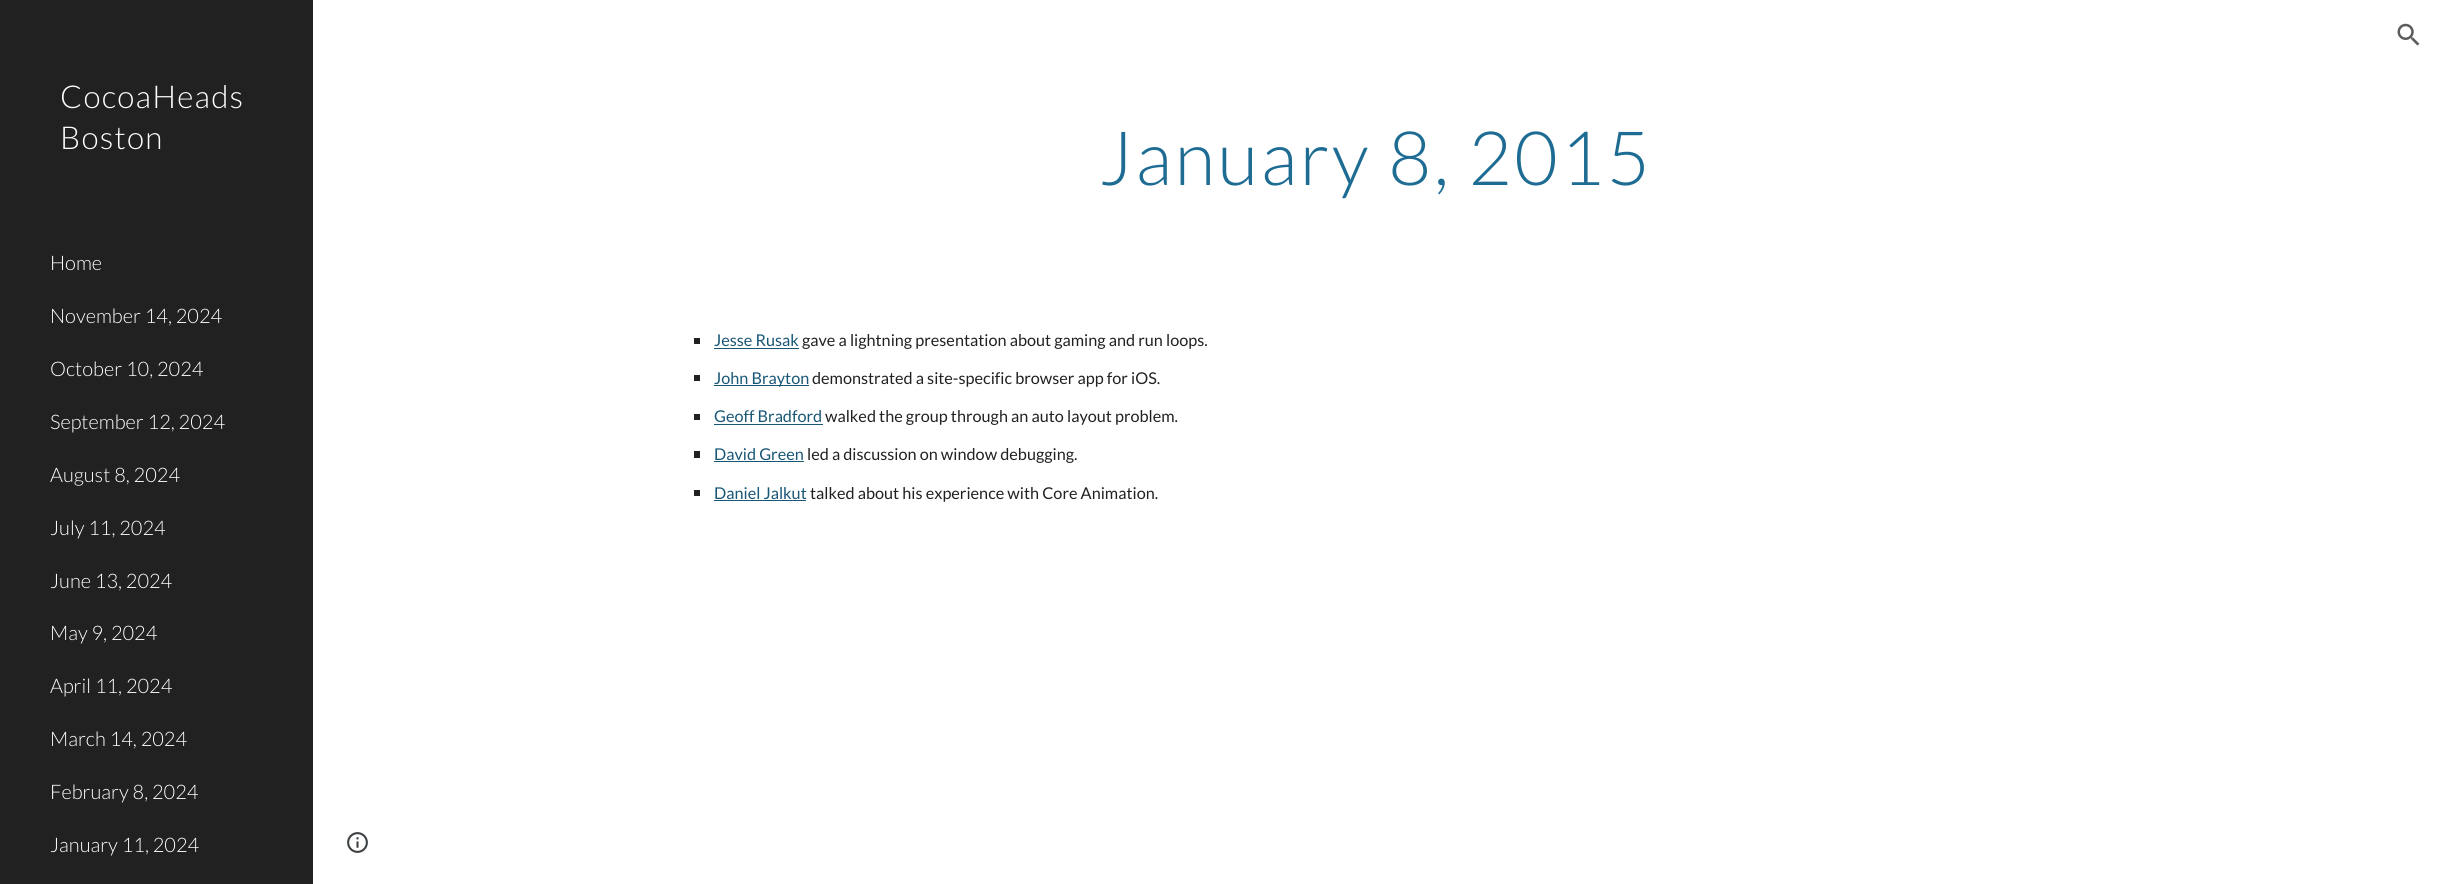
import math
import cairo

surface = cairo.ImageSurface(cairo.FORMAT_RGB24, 2438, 884)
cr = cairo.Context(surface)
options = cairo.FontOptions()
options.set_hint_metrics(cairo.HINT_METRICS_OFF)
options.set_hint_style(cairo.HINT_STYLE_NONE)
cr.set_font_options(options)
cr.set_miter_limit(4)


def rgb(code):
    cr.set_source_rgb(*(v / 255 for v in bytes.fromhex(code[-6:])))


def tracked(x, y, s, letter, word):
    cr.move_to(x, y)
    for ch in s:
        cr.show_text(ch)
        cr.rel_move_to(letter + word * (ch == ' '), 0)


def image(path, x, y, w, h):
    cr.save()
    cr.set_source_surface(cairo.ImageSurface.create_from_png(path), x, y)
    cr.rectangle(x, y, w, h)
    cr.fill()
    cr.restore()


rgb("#ffffff")
cr.paint()
image("img/1.png", 2397, 23, 23, 23)
for x, y, w, h, color in [
    (0, 0, 313, 884, "#212121"),
    (694, 338, 6, 6, "#212121"),
    (714, 348, 85, 1, "#185676"),
    (694, 375, 6, 6, "#212121"),
    (714, 385, 95, 1, "#185676"),
    (694, 414, 6, 6, "#212121"),
    (714, 424, 109, 1, "#185676"),
    (694, 451, 6, 7, "#212121"),
    (714, 461, 90, 1, "#185676"),
    (694, 490, 6, 6, "#212121"),
    (714, 500, 92, 1, "#185676"),
]:
    rgb(color)
    cr.rectangle(x, y, w, h)
    cr.fill()
image("img/2.png", 347, 832, 21, 21)
cr.select_font_face("Lato Light")
cr.set_font_size(31.5)
rgb("#ffffff")
tracked(60, 108, "CocoaHeads", 1.25, 0)
tracked(60, 149, "Boston", 1.25, 0)
cr.set_font_size(20)
for x, y, s in [
    (50, 270, "Home"),
    (50, 323, "November 14, 2024"),
    (50, 376, "October 10, 2024"),
    (50, 429, "September 12, 2024"),
    (50, 482, "August 8, 2024"),
    (50, 535, "July 11, 2024"),
    (50, 588, "June 13, 2024"),
    (50, 640, "May 9, 2024"),
    (50, 693, "April 11, 2024"),
    (50, 746, "March 14, 2024"),
    (50, 799, "February 8, 2024"),
    (50, 852, "January 11, 2024"),
]:
    cr.move_to(x, y)
    cr.show_text(s)
cr.set_font_size(75)
rgb("#1e6c93")
tracked(1099, 185, "January 8, 2015", 2.5, 0)
cr.select_font_face("Lato")
cr.set_font_size(16.25)
rgb("#185676")
cr.move_to(714, 346)
cr.show_text("Jesse Rusak")
rgb("#212121")
cr.move_to(802, 346)
cr.show_text("gave a lightning presentation about gaming and run loops.")
rgb("#185676")
cr.move_to(714, 384)
cr.show_text("John Brayton")
rgb("#212121")
cr.move_to(812, 384)
cr.show_text("demonstrated a site-specific browser app for iOS.")
rgb("#185676")
cr.move_to(714, 422)
cr.show_text("Geoff Bradford")
rgb("#212121")
cr.move_to(825, 422)
cr.show_text("walked the group through an auto layout problem.")
rgb("#185676")
cr.move_to(714, 460)
cr.show_text("David Green")
rgb("#212121")
cr.move_to(807, 460)
cr.show_text("led a discussion on window debugging.")
rgb("#185676")
cr.move_to(714, 499)
cr.show_text("Daniel Jalkut")
rgb("#212121")
cr.move_to(810, 499)
cr.show_text("talked about his experience with Core Animation.")
surface.write_to_png("page.png")
